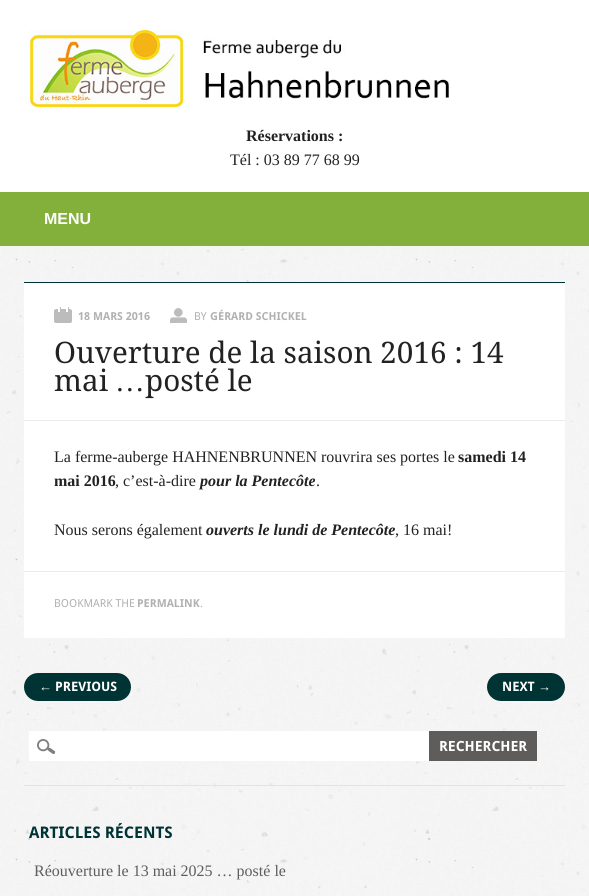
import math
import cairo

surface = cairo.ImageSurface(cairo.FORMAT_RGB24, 589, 896)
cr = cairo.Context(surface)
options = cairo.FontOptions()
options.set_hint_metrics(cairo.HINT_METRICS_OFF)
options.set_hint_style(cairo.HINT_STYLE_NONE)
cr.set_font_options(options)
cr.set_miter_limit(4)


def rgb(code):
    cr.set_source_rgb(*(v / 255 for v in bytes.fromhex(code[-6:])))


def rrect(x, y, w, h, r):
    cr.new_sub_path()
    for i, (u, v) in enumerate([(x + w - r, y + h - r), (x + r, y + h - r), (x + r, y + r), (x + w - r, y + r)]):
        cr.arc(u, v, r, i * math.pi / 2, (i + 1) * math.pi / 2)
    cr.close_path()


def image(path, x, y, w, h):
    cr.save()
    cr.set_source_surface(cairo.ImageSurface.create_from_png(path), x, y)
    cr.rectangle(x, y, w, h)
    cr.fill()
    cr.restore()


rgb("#ffffff")
cr.paint()
image("img/1.png", 0, 246, 589, 650)
image("img/2.png", 30, 30, 419, 77)
for x, y, w, h, color in [
    (0, 192, 589, 54, "#83af3b"),
    (24, 283, 541, 355, "#ffffff"),
    (24, 282, 541, 1, "#003333"),
]:
    rgb(color)
    cr.rectangle(x, y, w, h)
    cr.fill()
image("img/3.png", 54, 307, 18, 16)
image("img/4.png", 170, 308, 17, 15)
rgb("#ebebeb")
cr.rectangle(24, 420, 541, 1)
cr.fill()
cr.rectangle(24, 571, 541, 1)
cr.fill()
rgb("#003333")
rrect(24, 673, 107, 28, 14)
cr.fill()
rrect(487, 673, 78, 28, 14)
cr.fill()
rgb("#e3e3e3")
cr.rectangle(24, 785, 541, 1)
cr.fill()
rgb("#ffffff")
cr.rectangle(29, 731, 400, 30)
cr.fill()
image("img/5.png", 37, 739, 19, 15)
rgb("#5e5d5c")
cr.rectangle(429, 731, 108, 30)
cr.fill()
cr.select_font_face("Liberation Serif", cairo.FONT_SLANT_NORMAL, cairo.FONT_WEIGHT_BOLD)
cr.set_font_size(16)
rgb("#222222")
cr.move_to(246, 141)
cr.show_text("Réservations :")
cr.select_font_face("Liberation Serif")
cr.move_to(230, 165)
cr.show_text("Tél : 03 89 77 68 99")
cr.select_font_face("Liberation Sans", cairo.FONT_SLANT_NORMAL, cairo.FONT_WEIGHT_BOLD)
rgb("#ffffff")
cr.move_to(44, 224)
cr.show_text("MENU")
cr.select_font_face("Droid Sans", cairo.FONT_SLANT_NORMAL, cairo.FONT_WEIGHT_BOLD)
cr.set_font_size(11)
rgb("#b1b1b1")
cr.move_to(78, 320)
cr.show_text("18 MARS 2016")
cr.select_font_face("Droid Sans")
cr.move_to(194, 320)
cr.show_text("BY")
cr.select_font_face("Droid Sans", cairo.FONT_SLANT_NORMAL, cairo.FONT_WEIGHT_BOLD)
cr.move_to(210, 320)
cr.show_text("GÉRARD SCHICKEL")
cr.select_font_face("Droid Serif")
cr.set_font_size(29.6)
rgb("#222222")
cr.move_to(54, 363)
cr.show_text("Ouverture de la saison 2016 : 14")
cr.move_to(54, 391)
cr.show_text("mai")
cr.select_font_face("Liberation Serif")
cr.move_to(115, 391)
cr.show_text("…")
cr.select_font_face("Droid Serif")
cr.move_to(145, 391)
cr.show_text("posté le")
cr.select_font_face("Liberation Serif")
cr.set_font_size(16)
cr.move_to(54, 462)
cr.show_text("La ferme-auberge HAHNENBRUNNEN rouvrira ses portes le")
cr.select_font_face("Liberation Serif", cairo.FONT_SLANT_NORMAL, cairo.FONT_WEIGHT_BOLD)
cr.move_to(458, 462)
cr.show_text("samedi 14")
cr.move_to(54, 486)
cr.show_text("mai 2016")
cr.select_font_face("Liberation Serif")
cr.move_to(115, 486)
cr.show_text(", c’est-à-dire")
cr.select_font_face("Liberation Serif", cairo.FONT_SLANT_ITALIC, cairo.FONT_WEIGHT_BOLD)
cr.move_to(200, 486)
cr.show_text("pour la Pentecôte")
cr.select_font_face("Liberation Serif")
cr.move_to(316, 486)
cr.show_text(".")
cr.move_to(54, 535)
cr.show_text("Nous serons également")
cr.select_font_face("Liberation Serif", cairo.FONT_SLANT_ITALIC, cairo.FONT_WEIGHT_BOLD)
cr.move_to(206, 535)
cr.show_text("ouverts le lundi de Pentecôte")
cr.select_font_face("Liberation Serif")
cr.move_to(395, 535)
cr.show_text(", 16 mai!")
cr.select_font_face("Droid Sans")
cr.set_font_size(11)
rgb("#b1b1b1")
cr.move_to(54, 607)
cr.show_text("BOOKMARK THE")
cr.select_font_face("Droid Sans", cairo.FONT_SLANT_NORMAL, cairo.FONT_WEIGHT_BOLD)
cr.move_to(137, 607)
cr.show_text("PERMALINK")
cr.select_font_face("Droid Sans")
cr.move_to(200, 607)
cr.show_text(".")
cr.select_font_face("Liberation Sans", cairo.FONT_SLANT_NORMAL, cairo.FONT_WEIGHT_BOLD)
cr.set_font_size(13)
rgb("#ffffff")
cr.move_to(39, 691)
cr.show_text("←")
cr.select_font_face("Droid Sans", cairo.FONT_SLANT_NORMAL, cairo.FONT_WEIGHT_BOLD)
cr.move_to(55, 691)
cr.show_text("PREVIOUS")
cr.move_to(502, 691)
cr.show_text("NEXT")
cr.select_font_face("Liberation Sans", cairo.FONT_SLANT_NORMAL, cairo.FONT_WEIGHT_BOLD)
cr.move_to(538, 691)
cr.show_text("→")
cr.select_font_face("Droid Sans", cairo.FONT_SLANT_NORMAL, cairo.FONT_WEIGHT_BOLD)
cr.set_font_size(14)
cr.move_to(439, 751)
cr.show_text("RECHERCHER")
cr.set_font_size(16)
rgb("#003333")
cr.move_to(29, 838)
cr.show_text("ARTICLES RÉCENTS")
cr.select_font_face("Liberation Serif")
rgb("#5e5d5c")
cr.move_to(34, 876)
cr.show_text("Réouverture le 13 mai 2025 … posté le")
surface.write_to_png("page.png")
